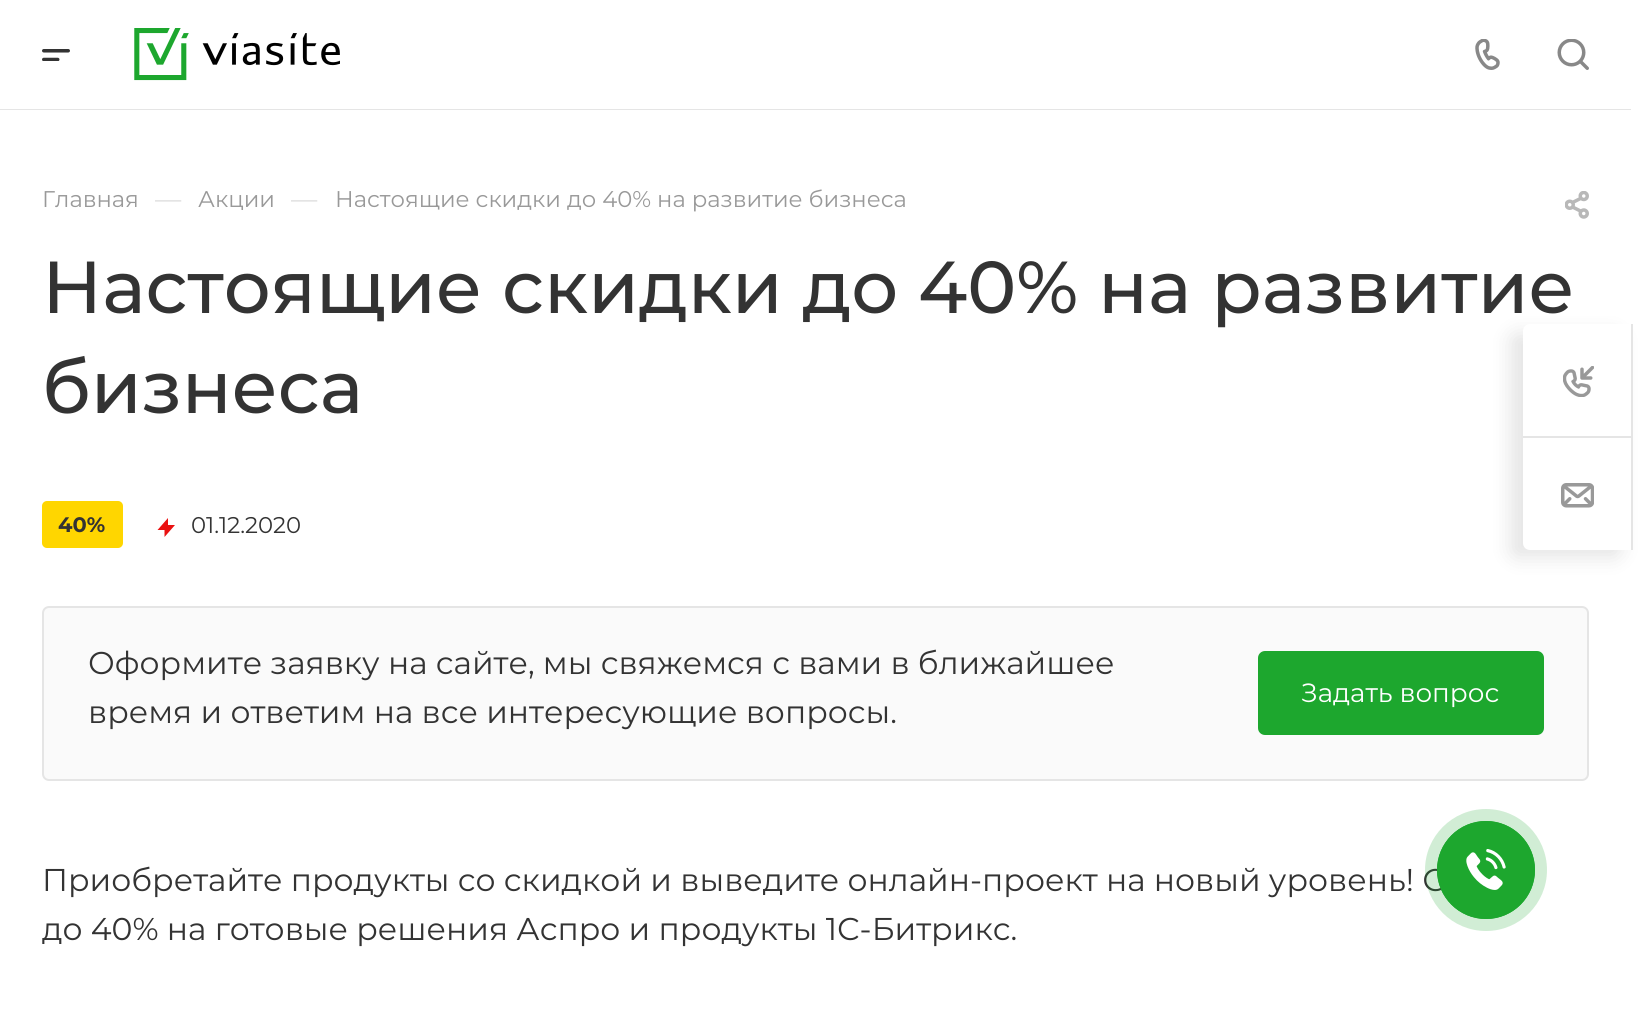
import math
import cairo

surface = cairo.ImageSurface(cairo.FORMAT_RGB24, 1641, 1015)
cr = cairo.Context(surface)
options = cairo.FontOptions()
options.set_hint_metrics(cairo.HINT_METRICS_OFF)
options.set_hint_style(cairo.HINT_STYLE_NONE)
cr.set_font_options(options)
cr.set_miter_limit(4)


def rgb(code):
    cr.set_source_rgb(*(v / 255 for v in bytes.fromhex(code[-6:])))


def rrect(x, y, w, h, r):
    cr.new_sub_path()
    for i, (u, v) in enumerate([(x + w - r, y + h - r), (x + r, y + h - r), (x + r, y + r), (x + w - r, y + r)]):
        cr.arc(u, v, r, i * math.pi / 2, (i + 1) * math.pi / 2)
    cr.close_path()


def soft_shadow(x, y, w, h, r, blur, alpha):
    cr.push_group_with_content(cairo.CONTENT_ALPHA)
    cr.set_operator(cairo.OPERATOR_SOURCE)
    for i in range(15, -16, -2):
        e = blur * i / 6
        if min(w, h) + 2 * e > 0:
            cr.set_source_rgba(0, 0, 0, alpha * math.erfc((i - 1) / 8.5) / 2)
            rrect(x - e, y - e, w + 2 * e, h + 2 * e, max(0, min(r + e + blur * .6, min(w, h) / 2 + e)))
            cr.fill()
    cr.mask(cr.pop_group())


def image(path, x, y, w, h):
    cr.save()
    cr.set_source_surface(cairo.ImageSurface.create_from_png(path), x, y)
    cr.rectangle(x, y, w, h)
    cr.fill()
    cr.restore()


rgb("#ffffff")
cr.paint()
rgb("#e5e5e5")
cr.rectangle(0, 109, 1631, 1)
cr.fill()
image("img/1.png", 42, 49, 28, 12)
image("img/2.png", 134, 28, 206, 53)
image("img/3.png", 1475, 39, 25, 31)
image("img/4.png", 1557, 39, 32, 31)
image("img/5.png", 1565, 191, 24, 28)
rgb("#ffd600")
rrect(42, 501, 81, 47, 5)
cr.fill()
rgb("#ea1111")
cr.new_path()
cr.move_to(157.5, 530)
cr.line_to(168, 518)
cr.line_to(168, 525)
cr.line_to(175, 525)
cr.line_to(164.5, 537)
cr.line_to(164.5, 530)
cr.close_path()
cr.fill()
rgb("#fafafa")
rrect(43, 607, 1545, 173, 6)
cr.fill_preserve()
rgb("#e5e5e5")
cr.stroke()
rgb("#1da72e")
rrect(1259, 652, 284, 82, 6)
cr.fill_preserve()
cr.stroke()
rgb("#000000")
soft_shadow(1510, 333, 111, 225, 7, 9.5, 0.1)
cr.select_font_face("Montserrat")
cr.set_font_size(22.75)
rgb("#999999")
cr.move_to(42, 207)
cr.show_text("Главная")
cr.set_font_size(26.25)
rgb("#dddddd")
cr.move_to(155, 208)
cr.show_text("—")
cr.set_font_size(22.75)
rgb("#999999")
cr.move_to(198, 207)
cr.show_text("Акции")
cr.set_font_size(26.25)
rgb("#dddddd")
cr.move_to(291, 208)
cr.show_text("—")
cr.set_font_size(22.75)
rgb("#999999")
cr.move_to(335, 207)
cr.show_text("Настоящие скидки до 40% на развитие бизнеса")
cr.select_font_face("Montserrat Medium")
cr.set_font_size(73.5)
rgb("#333333")
cr.move_to(42, 313)
cr.show_text("Настоящие скидки до 40% на развитие")
cr.move_to(42, 413)
cr.show_text("бизнеса")
cr.select_font_face("Montserrat", cairo.FONT_SLANT_NORMAL, cairo.FONT_WEIGHT_BOLD)
cr.set_font_size(21)
cr.move_to(58, 532)
cr.show_text("40%")
cr.select_font_face("Montserrat")
cr.set_font_size(22.75)
cr.move_to(191, 533)
cr.show_text("01.12.2020")
cr.set_font_size(31.5)
cr.move_to(88, 674)
cr.show_text("Оформите заявку на сайте, мы свяжемся с вами в ближайшее")
cr.move_to(88, 723)
cr.show_text("время и ответим на все интересующие вопросы.")
cr.set_font_size(26.25)
rgb("#ffffff")
cr.move_to(1301, 702)
cr.show_text("Задать вопрос")
cr.set_font_size(31.5)
rgb("#333333")
cr.move_to(42, 891)
cr.show_text("Приобретайте продукты со скидкой и выведите онлайн-проект на новый уровень! С")
cr.move_to(42, 940)
cr.show_text("до 40% на готовые решения Аспро и продукты 1С-Битрикс.")
rgb("#ffffff")
cr.new_path()
cr.move_to(1530, 324)
cr.line_to(1633, 324)
cr.line_to(1633, 550)
cr.line_to(1530, 550)
cr.curve_to(1526, 550, 1523, 547, 1523, 543)
cr.line_to(1523, 331)
cr.curve_to(1523, 327, 1526, 324, 1530, 324)
cr.close_path()
cr.fill()
image("img/6.png", 1563, 366, 31, 31)
rgb("#e5e5e5")
cr.rectangle(1523, 436, 110, 2)
cr.fill()
cr.rectangle(1631, 324, 2, 226)
cr.fill()
image("img/7.png", 1561, 483, 33, 25)
cr.set_source_rgba(0.114, 0.655, 0.18, 0.2)
cr.arc(1486, 870, 61, 0, 2 * math.pi)
cr.fill()
cr.arc(1486, 870, 48.5, 0, 2 * math.pi)
rgb("#1da72e")
cr.set_line_width(1)
cr.stroke()
cr.arc(1486, 870, 49, 0, 2 * math.pi)
cr.fill()
image("img/8.png", 1466, 849, 40, 41)
surface.write_to_png("page.png")
